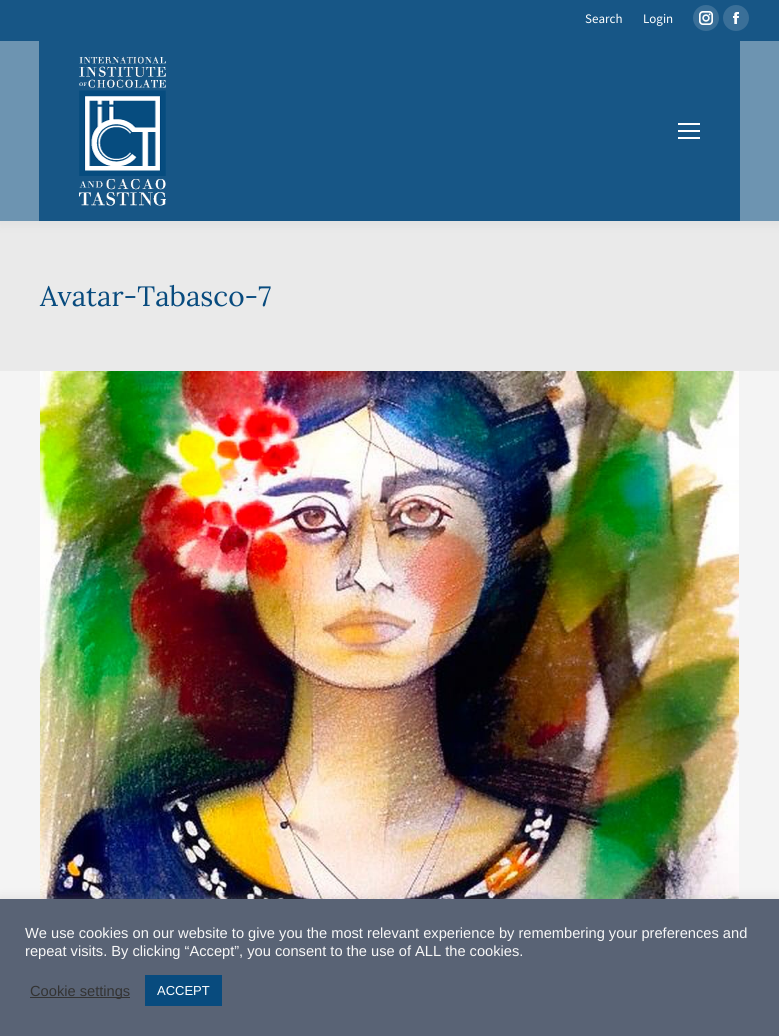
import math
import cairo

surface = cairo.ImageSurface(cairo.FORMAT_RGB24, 779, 1036)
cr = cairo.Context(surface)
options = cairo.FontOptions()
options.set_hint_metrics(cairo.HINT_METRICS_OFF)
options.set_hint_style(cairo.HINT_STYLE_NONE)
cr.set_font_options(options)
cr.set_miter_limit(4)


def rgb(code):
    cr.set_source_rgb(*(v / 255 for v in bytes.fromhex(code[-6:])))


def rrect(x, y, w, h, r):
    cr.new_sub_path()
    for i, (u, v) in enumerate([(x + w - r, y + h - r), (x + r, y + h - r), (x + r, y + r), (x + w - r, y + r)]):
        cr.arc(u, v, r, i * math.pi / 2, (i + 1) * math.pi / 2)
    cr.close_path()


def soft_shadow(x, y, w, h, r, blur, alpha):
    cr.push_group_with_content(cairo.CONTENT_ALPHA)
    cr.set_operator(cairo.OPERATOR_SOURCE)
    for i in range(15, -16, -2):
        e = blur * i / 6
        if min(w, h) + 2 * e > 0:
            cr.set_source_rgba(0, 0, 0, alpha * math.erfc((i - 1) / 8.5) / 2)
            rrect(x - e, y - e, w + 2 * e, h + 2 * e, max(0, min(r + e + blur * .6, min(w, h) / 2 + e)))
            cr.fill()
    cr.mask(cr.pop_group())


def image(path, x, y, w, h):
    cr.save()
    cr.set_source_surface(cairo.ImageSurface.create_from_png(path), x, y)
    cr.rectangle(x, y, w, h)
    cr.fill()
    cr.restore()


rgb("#f4f4f4")
cr.paint()
rgb("#eaeaea")
cr.rectangle(0, 221, 779, 150)
cr.fill()
rgb("#000000")
soft_shadow(-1, -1, 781, 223, 0, 7.5, 0.07)
rgb("#6d94b1")
cr.rectangle(0, 41, 779, 180)
cr.fill()
rgb("#175686")
cr.rectangle(0, 0, 779, 41)
cr.fill()
rgb("#3a6f98")
cr.arc(706, 18, 13, 0, 2 * math.pi)
cr.fill()
image("img/1.png", 699, 11, 14, 14)
cr.arc(736, 18, 13, 0, 2 * math.pi)
cr.fill()
image("img/2.png", 733, 12, 6, 12)
rgb("#175686")
cr.rectangle(39, 41, 701, 180)
cr.fill()
image("img/3.png", 79, 56, 87, 150)
for x, y, w, h, color in [
    (678, 123, 22, 2, "#ffffff"),
    (678, 130, 22, 2, "#ffffff"),
    (678, 137, 22, 2, "#ffffff"),
]:
    rgb(color)
    cr.rectangle(x, y, w, h)
    cr.fill()
image("img/4.png", 40, 371, 699, 528)
rgb("#acabab")
soft_shadow(0, 898, 779, 137, 0, 5, 0.3)
for x, y, w, h, color in [
    (0, 899, 779, 137, "#596375"),
    (30, 997, 100, 1, "#333333"),
    (145, 975, 77, 31, "#084b7e"),
]:
    rgb(color)
    cr.rectangle(x, y, w, h)
    cr.fill()
cr.select_font_face("Source Sans Pro")
cr.set_font_size(13)
rgb("#ffffff")
cr.move_to(585, 23)
cr.show_text("Search")
cr.move_to(643, 23)
cr.show_text("Login")
cr.select_font_face("Lora")
cr.set_font_size(28)
rgb("#084b7e")
cr.move_to(40, 306)
cr.show_text("Avatar-Tabasco-7")
cr.select_font_face("Liberation Sans")
cr.set_font_size(14.65)
rgb("#f7f7f7")
cr.move_to(25, 938)
cr.show_text("We use cookies on our website to give you the most relevant experience by remembering your preferences and")
cr.move_to(25, 956)
cr.show_text("repeat visits. By clicking “Accept”, you consent to the use of ALL the cookies.")
rgb("#333333")
cr.move_to(30, 996)
cr.show_text("Cookie settings")
cr.set_font_size(13)
rgb("#ffffff")
cr.move_to(157, 995)
cr.show_text("ACCEPT")
surface.write_to_png("page.png")
